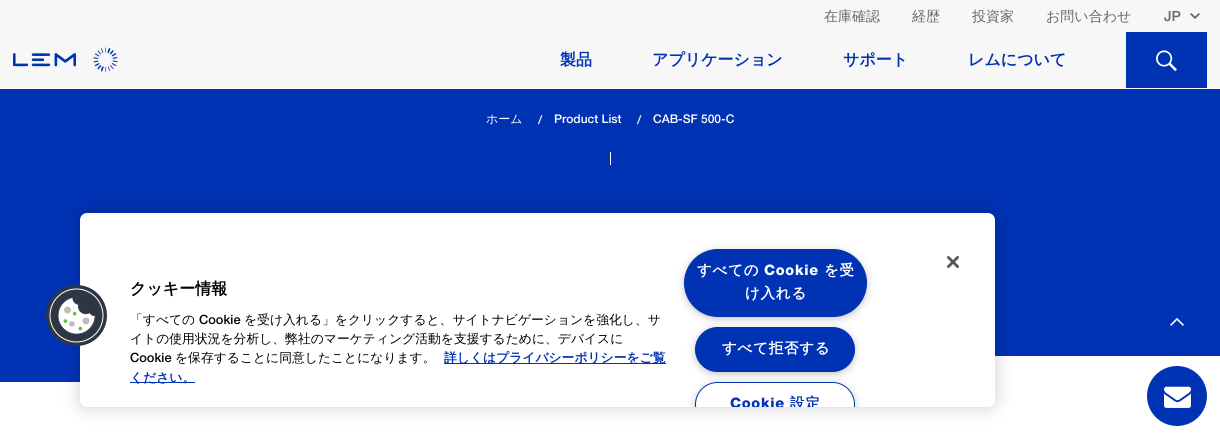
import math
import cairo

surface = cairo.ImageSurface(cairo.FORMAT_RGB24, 1220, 439)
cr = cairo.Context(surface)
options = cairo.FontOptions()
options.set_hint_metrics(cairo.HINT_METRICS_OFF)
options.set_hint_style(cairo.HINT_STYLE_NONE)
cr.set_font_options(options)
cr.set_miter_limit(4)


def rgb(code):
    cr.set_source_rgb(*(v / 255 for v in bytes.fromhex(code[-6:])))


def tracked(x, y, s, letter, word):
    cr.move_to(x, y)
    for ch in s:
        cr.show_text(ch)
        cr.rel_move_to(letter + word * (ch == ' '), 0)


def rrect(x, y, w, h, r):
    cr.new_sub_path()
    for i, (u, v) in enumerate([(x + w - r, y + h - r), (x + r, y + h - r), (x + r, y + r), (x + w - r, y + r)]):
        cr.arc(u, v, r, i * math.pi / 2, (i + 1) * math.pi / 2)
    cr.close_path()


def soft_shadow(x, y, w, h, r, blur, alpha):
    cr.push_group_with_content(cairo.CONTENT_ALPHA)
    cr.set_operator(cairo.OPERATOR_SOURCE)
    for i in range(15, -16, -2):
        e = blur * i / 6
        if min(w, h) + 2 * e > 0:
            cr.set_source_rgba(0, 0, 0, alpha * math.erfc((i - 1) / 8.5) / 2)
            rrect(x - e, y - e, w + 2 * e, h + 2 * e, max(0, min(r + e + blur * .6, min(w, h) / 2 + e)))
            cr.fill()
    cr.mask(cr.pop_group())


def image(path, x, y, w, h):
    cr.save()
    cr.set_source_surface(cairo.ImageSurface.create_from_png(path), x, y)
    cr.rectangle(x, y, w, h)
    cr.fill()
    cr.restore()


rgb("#ffffff")
cr.paint()
rgb("#f7f7f7")
cr.rectangle(0, 0, 1220, 88)
cr.fill()
image("img/1.png", 1190, 13, 10, 6)
image("img/2.png", 13, 47, 105, 25)
rgb("#0032b4")
cr.rectangle(1126, 32, 81, 56)
cr.fill()
image("img/3.png", 1156, 50, 21, 22)
for x, y, w, h, color in [
    (0, 89, 1220, 293, "#0032b4"),
    (610, 152, 1, 13, "#ffffff"),
    (995, 356, 225, 26, "#ffffff"),
]:
    rgb(color)
    cr.rectangle(x, y, w, h)
    cr.fill()
rgb("#000000")
soft_shadow(80, 213, 915, 194, 7, 9, 0.2)
rgb("#ffffff")
rrect(80, 213, 915, 194, 7)
cr.fill()
image("img/4.png", 46, 285, 61, 61)
rgb("#0032b4")
cr.rectangle(444, 363, 222, 1)
cr.fill()
cr.rectangle(130, 382, 65, 1)
cr.fill()
rgb("#999999")
soft_shadow(687, 254, 177, 62, 31, 5, 1)
rgb("#0032b4")
rrect(684.5, 249.5, 182, 67, 33.5)
cr.fill_preserve()
cr.set_line_width(1)
cr.stroke()
rgb("#999999")
soft_shadow(698, 332, 154, 39, 19.5, 5, 1)
rgb("#0032b4")
rrect(695.5, 327.5, 159, 44, 22)
cr.fill_preserve()
cr.stroke()
cr.save()
cr.rectangle(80, 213, 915, 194)
cr.clip()
rgb("#999999")
soft_shadow(698, 387, 154, 39, 19.5, 5, 1)
cr.restore()
cr.save()
cr.rectangle(80, 213, 915, 194)
cr.clip()
rgb("#ffffff")
rrect(695.5, 382.5, 159, 44, 22)
cr.fill_preserve()
rgb("#0032b4")
cr.stroke()
cr.restore()
image("img/5.png", 947, 256, 12, 12)
image("img/6.png", 1170, 318, 14, 8)
cr.arc(1177, 396, 30, 0, 2 * math.pi)
cr.fill()
image("img/7.png", 1164, 386, 27, 22)
cr.select_font_face("WenQuanYi Zen Hei Medium")
cr.set_font_size(14)
rgb("#676767")
for x, y, s in [
    (824, 21, "在庫確認"),
    (912, 21, "経歴"),
    (972, 21, "投資家"),
    (1046, 21, "お問い合わせ"),
]:
    cr.move_to(x, y)
    cr.show_text(s)
cr.save()
cr.rectangle(1164, 8, 21, 16)
cr.clip()
cr.select_font_face("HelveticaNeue")
cr.move_to(1164, 21)
cr.show_text("JP")
cr.restore()
cr.select_font_face("WenQuanYi Zen Hei", cairo.FONT_SLANT_NORMAL, cairo.FONT_WEIGHT_BOLD)
cr.set_font_size(16)
rgb("#0032b4")
for x, y, s in [
    (560, 65, "製品"),
    (652, 65, "アプリケーション"),
    (843, 65, "サポート"),
    (968, 65, "レムについて"),
]:
    cr.move_to(x, y)
    cr.show_text(s)
cr.select_font_face("WenQuanYi Zen Hei Medium")
cr.set_font_size(12)
rgb("#ffffff")
cr.move_to(486, 123)
cr.show_text("ホーム")
cr.select_font_face("HelveticaNeue")
rgb("#f1f1f1")
cr.move_to(538, 124)
cr.show_text("/")
rgb("#ffffff")
cr.move_to(554, 123)
cr.show_text("Product List")
rgb("#f1f1f1")
cr.move_to(637, 124)
cr.show_text("/")
rgb("#ffffff")
cr.move_to(653, 123)
cr.show_text("CAB-SF 500-C")
cr.select_font_face("WenQuanYi Zen Hei", cairo.FONT_SLANT_NORMAL, cairo.FONT_WEIGHT_BOLD)
cr.set_font_size(16)
rgb("#000000")
cr.move_to(130, 294)
cr.show_text("クッキー情報")
cr.select_font_face("WenQuanYi Zen Hei Medium")
cr.set_font_size(12.8)
cr.move_to(130, 324)
cr.show_text("「すべての")
cr.select_font_face("HelveticaNeue")
cr.move_to(199, 324)
cr.show_text("Cookie")
cr.select_font_face("WenQuanYi Zen Hei Medium")
cr.move_to(244, 324)
cr.show_text("を受け入れる」をクリックすると、サイトナビゲーションを強化し、サ")
cr.move_to(130, 343)
cr.show_text("イトの使用状況を分析し、弊社のマーケティング活動を支援するために、デバイスに")
cr.select_font_face("HelveticaNeue")
cr.move_to(130, 362)
cr.show_text("Cookie")
cr.select_font_face("WenQuanYi Zen Hei Medium")
cr.move_to(175, 362)
cr.show_text("を保存することに同意したことになります。")
cr.select_font_face("WenQuanYi Zen Hei", cairo.FONT_SLANT_NORMAL, cairo.FONT_WEIGHT_BOLD)
rgb("#0032b4")
cr.move_to(444, 362)
cr.show_text("詳しくはプライバシーポリシーをご覧")
cr.move_to(130, 382)
cr.show_text("ください。")
cr.set_font_size(14.5)
rgb("#ffffff")
tracked(697, 275, "すべての", 0.75, 0)
cr.select_font_face("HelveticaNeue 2")
tracked(764, 275, "Cookie", 0.75, 0)
cr.select_font_face("WenQuanYi Zen Hei", cairo.FONT_SLANT_NORMAL, cairo.FONT_WEIGHT_BOLD)
for x, y, s in [
    (824, 275, "を受"),
    (745, 298, "け入れる"),
    (722, 353, "すべて拒否する"),
]:
    tracked(x, y, s, 0.75, 0)
cr.save()
cr.rectangle(80, 213, 915, 194)
cr.clip()
cr.select_font_face("HelveticaNeue 2")
rgb("#0032b4")
tracked(730, 408, "Cookie", 0.75, 0)
cr.select_font_face("WenQuanYi Zen Hei", cairo.FONT_SLANT_NORMAL, cairo.FONT_WEIGHT_BOLD)
tracked(790, 408, "設定", 0.75, 0)
cr.restore()
surface.write_to_png("page.png")
